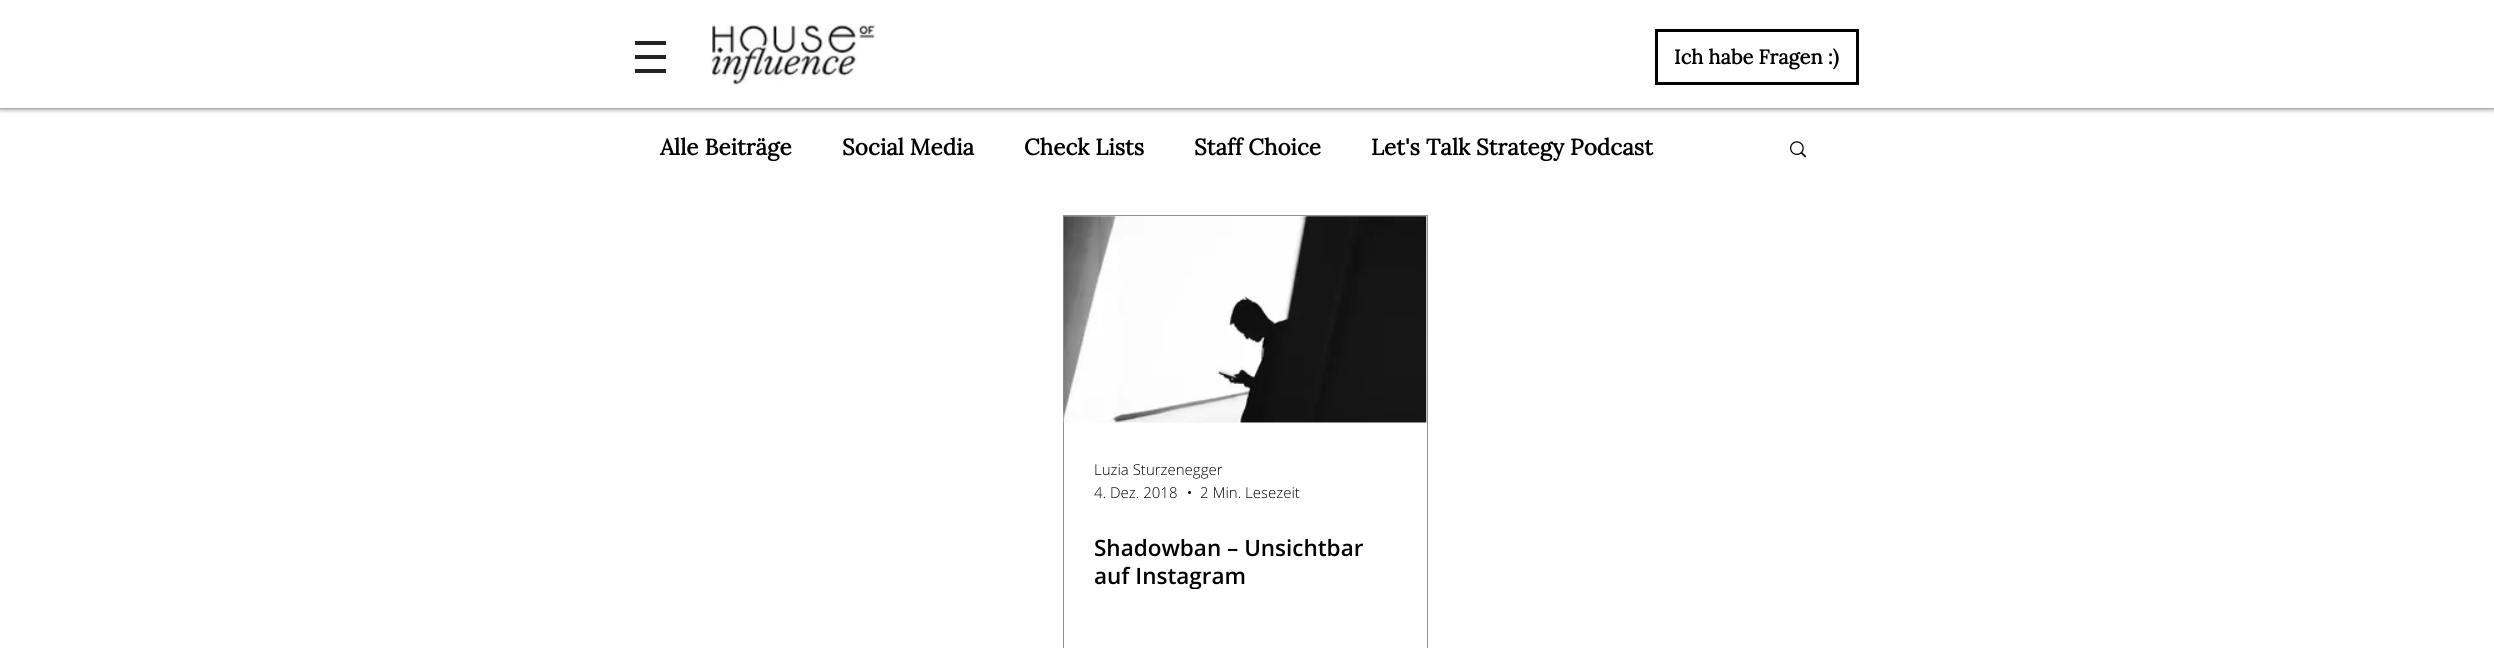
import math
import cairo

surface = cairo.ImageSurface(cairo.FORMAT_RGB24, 2494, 648)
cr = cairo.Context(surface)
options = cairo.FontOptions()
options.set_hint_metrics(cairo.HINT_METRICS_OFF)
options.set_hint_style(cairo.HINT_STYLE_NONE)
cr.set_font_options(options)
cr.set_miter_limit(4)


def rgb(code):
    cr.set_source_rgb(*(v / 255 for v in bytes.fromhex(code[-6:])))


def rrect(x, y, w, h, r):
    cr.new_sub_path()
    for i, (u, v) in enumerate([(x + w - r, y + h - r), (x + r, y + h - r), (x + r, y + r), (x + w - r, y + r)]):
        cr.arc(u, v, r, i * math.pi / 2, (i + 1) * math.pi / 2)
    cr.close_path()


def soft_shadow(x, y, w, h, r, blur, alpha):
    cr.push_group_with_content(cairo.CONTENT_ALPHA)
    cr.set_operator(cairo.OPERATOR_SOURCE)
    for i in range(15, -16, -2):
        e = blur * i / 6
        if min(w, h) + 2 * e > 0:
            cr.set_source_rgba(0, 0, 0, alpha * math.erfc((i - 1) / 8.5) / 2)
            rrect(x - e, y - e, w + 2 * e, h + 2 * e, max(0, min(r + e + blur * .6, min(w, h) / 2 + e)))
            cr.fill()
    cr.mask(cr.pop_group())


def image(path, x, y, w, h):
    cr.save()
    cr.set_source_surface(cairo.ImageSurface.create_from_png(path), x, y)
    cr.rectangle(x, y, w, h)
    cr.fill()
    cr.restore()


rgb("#ffffff")
cr.paint()
rgb("#000000")
soft_shadow(0, 0, 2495, 108, 0, 3, 0.7)
for x, y, w, h, color in [
    (0, 0, 2494, 108, "#ffffff"),
    (635, 69, 31, 4, "#242323"),
    (635, 41, 31, 4, "#242323"),
    (635, 55, 31, 4, "#242323"),
]:
    rgb(color)
    cr.rectangle(x, y, w, h)
    cr.fill()
image("img/1.png", 711, 24, 165, 61)
cr.rectangle(1656.5, 30.5, 201, 53)
rgb("#000000")
cr.set_line_width(3)
cr.stroke()
image("img/2.png", 1790, 141, 17, 17)
cr.rectangle(1063.5, 215.5, 364, 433)
rgb("#919191")
cr.set_line_width(1)
cr.stroke()
image("img/3.png", 1063, 216, 364, 207)
rgb("#000000")
cr.arc(1189.5, 492.5, 1.5, 0, 2 * math.pi)
cr.fill()
cr.select_font_face("Lora", cairo.FONT_SLANT_NORMAL, cairo.FONT_WEIGHT_BOLD)
cr.set_font_size(20)
cr.move_to(1674, 64)
cr.show_text("Ich habe Fragen :)")
cr.set_font_size(22.5)
for x, y, s in [
    (660, 155, "Alle Beiträge"),
    (842, 155, "Social Media"),
    (1024, 155, "Check Lists"),
    (1194, 155, "Staff Choice"),
    (1371, 155, "Let's Talk Strategy Podcast"),
]:
    cr.move_to(x, y)
    cr.show_text(s)
cr.select_font_face("Open Sans Light")
cr.set_font_size(15)
for x, y, s in [
    (1094, 475, "Luzia Sturzenegger"),
    (1094, 498, "4. Dez. 2018"),
    (1200, 498, "2 Min. Lesezeit"),
]:
    cr.move_to(x, y)
    cr.show_text(s)
cr.select_font_face("Open Sans SemiBold")
cr.set_font_size(22.5)
cr.move_to(1094, 556)
cr.show_text("Shadowban – Unsichtbar")
cr.save()
cr.rectangle(1094, 534, 302, 55)
cr.clip()
cr.move_to(1094, 584)
cr.show_text("auf Instagram")
cr.restore()
surface.write_to_png("page.png")
